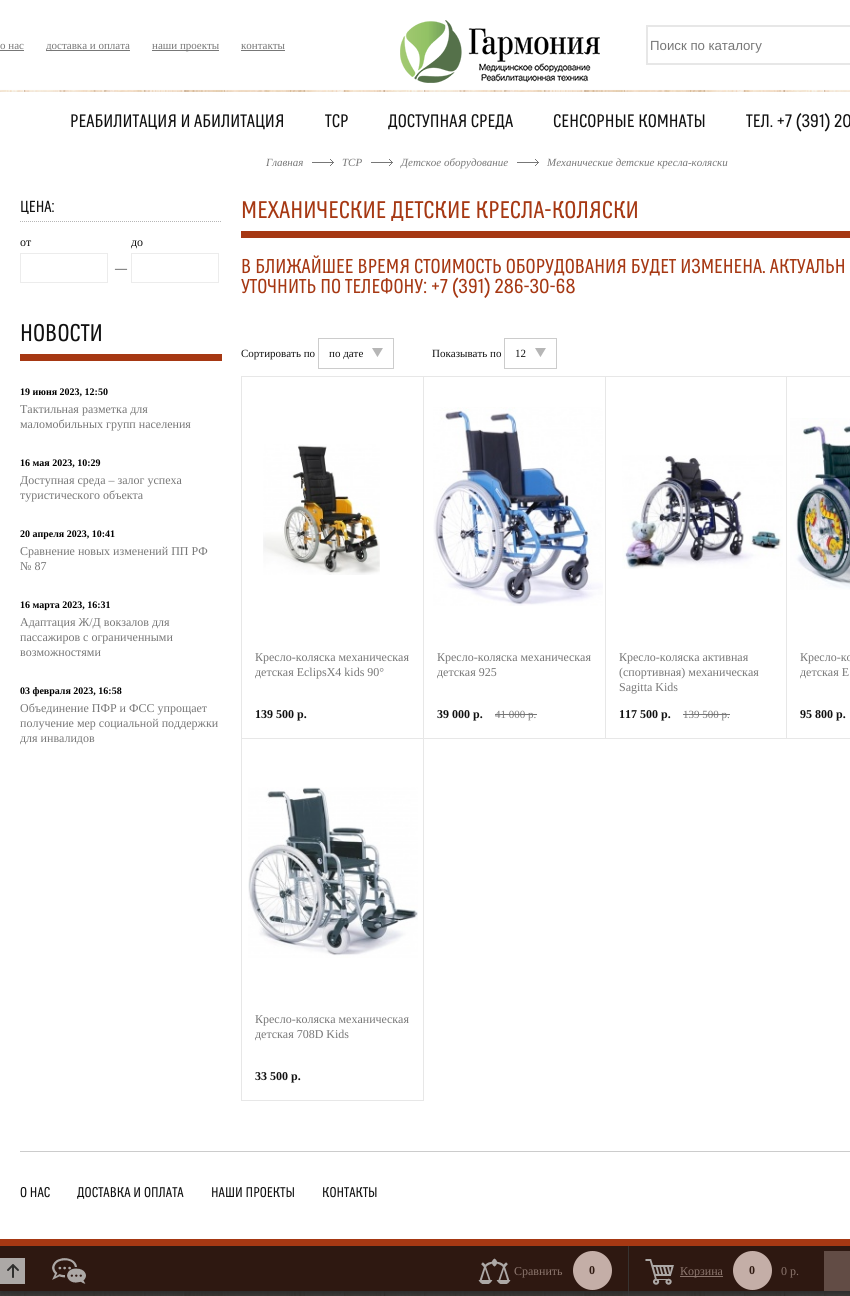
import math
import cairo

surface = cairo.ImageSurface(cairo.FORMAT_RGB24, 850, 1296)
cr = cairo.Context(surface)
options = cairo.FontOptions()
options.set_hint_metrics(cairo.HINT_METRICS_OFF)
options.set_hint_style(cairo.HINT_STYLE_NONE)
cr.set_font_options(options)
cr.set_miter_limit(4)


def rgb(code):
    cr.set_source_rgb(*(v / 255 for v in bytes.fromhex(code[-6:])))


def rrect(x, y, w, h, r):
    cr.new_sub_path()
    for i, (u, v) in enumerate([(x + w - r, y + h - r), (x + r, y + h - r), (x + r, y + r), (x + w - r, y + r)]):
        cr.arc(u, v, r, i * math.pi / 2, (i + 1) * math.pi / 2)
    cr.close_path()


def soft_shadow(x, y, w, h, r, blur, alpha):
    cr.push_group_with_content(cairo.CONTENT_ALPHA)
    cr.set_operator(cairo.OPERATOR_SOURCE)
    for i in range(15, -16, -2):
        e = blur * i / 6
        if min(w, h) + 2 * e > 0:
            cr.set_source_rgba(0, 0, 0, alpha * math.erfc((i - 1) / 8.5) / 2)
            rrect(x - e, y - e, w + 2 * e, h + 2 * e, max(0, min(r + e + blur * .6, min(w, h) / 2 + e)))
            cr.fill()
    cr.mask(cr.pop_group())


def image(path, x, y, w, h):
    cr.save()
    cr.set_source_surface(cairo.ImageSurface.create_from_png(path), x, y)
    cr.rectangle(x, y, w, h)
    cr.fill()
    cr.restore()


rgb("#ffffff")
cr.paint()
image("img/1.png", 0, 90, 850, 1206)
for x, y, w, h, color in [
    (0, 50, 24, 1, "#777777"),
    (46, 50, 84, 1, "#777777"),
    (152, 50, 67, 1, "#777777"),
    (241, 50, 44, 1, "#777777"),
]:
    rgb(color)
    cr.rectangle(x, y, w, h)
    cr.fill()
image("img/2.png", 400, 20, 200, 63)
cr.rectangle(647, 26, 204, 38)
rgb("#e7e7e7")
cr.stroke()
rgb("#999999")
soft_shadow(0, 95, 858, 1199, 0, 2.5, 1)
rgb("#ffffff")
cr.rectangle(0, 92, 850, 1147)
cr.fill()
image("img/3.png", 312, 159, 22, 7)
image("img/3.png", 371, 159, 22, 7)
image("img/3.png", 517, 159, 22, 7)
cr.new_path()
cr.move_to(20, 221.5)
cr.line_to(222, 221.5)
rgb("#b6b6b6")
cr.set_line_width(1)
cr.set_dash([1, 1])
cr.stroke()
cr.rectangle(20.5, 253.5, 87, 29)
rgb("#ececec")
cr.set_dash([])
cr.stroke()
cr.rectangle(131.5, 253.5, 87, 29)
cr.stroke()
rgb("#a63813")
cr.rectangle(20, 354, 202, 7)
cr.fill()
cr.rectangle(241, 231, 609, 7)
cr.fill()
cr.rectangle(318.5, 338.5, 75, 30)
rgb("#cccccc")
cr.stroke()
image("img/4.png", 372, 348, 11, 9)
cr.rectangle(504.5, 338.5, 52, 30)
cr.stroke()
image("img/4.png", 535, 348, 11, 9)
cr.rectangle(241.5, 376.5, 182, 362)
rgb("#e7e7e7")
cr.stroke()
image("img/5.png", 263, 444, 117, 131)
cr.rectangle(423.5, 376.5, 182, 362)
cr.stroke()
image("img/6.png", 433, 407, 170, 199)
rgb("#777777")
cr.rectangle(495, 714, 42, 1)
cr.fill()
cr.rectangle(605.5, 376.5, 181, 362)
rgb("#e7e7e7")
cr.stroke()
image("img/7.png", 622, 455, 161, 114)
rgb("#777777")
cr.rectangle(683, 714, 47, 1)
cr.fill()
cr.rectangle(786.5, 376.5, 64, 362)
rgb("#e7e7e7")
cr.stroke()
image("img/8.png", 790, 418, 60, 172)
cr.rectangle(241.5, 738.5, 182, 362)
cr.stroke()
image("img/9.png", 248, 787, 170, 171)
rgb("#cccccc")
cr.rectangle(20, 1151, 830, 1)
cr.fill()
rgb("#a63813")
cr.rectangle(0, 1239, 850, 52)
cr.fill()
cr.set_source_rgba(0.067, 0.067, 0.067, 0.8)
cr.rectangle(0, 1246, 850, 50)
cr.fill()
cr.set_source_rgba(0.8, 0.8, 0.8, 0.8)
cr.rectangle(0, 1258, 25, 26)
cr.fill()
image("img/10.png", 7, 1264, 12, 14)
image("img/11.png", 52, 1258, 34, 26)
image("img/12.png", 478, 1258, 33, 26)
rgb("#c4aea7")
cr.arc(592.5, 1270.5, 19.5, 0, 2 * math.pi)
cr.fill()
cr.set_source_rgba(0.227, 0.227, 0.227, 0.8)
cr.rectangle(628, 1246, 1, 50)
cr.fill()
image("img/13.png", 645, 1259, 29, 26)
rgb("#8b756d")
cr.rectangle(680, 1276, 43, 1)
cr.fill()
rgb("#c4aea7")
cr.arc(752.5, 1270.5, 19.5, 0, 2 * math.pi)
cr.fill()
rgb("#624c45")
cr.rectangle(824, 1251, 26, 40)
cr.fill()
cr.select_font_face("Liberation Serif")
cr.set_font_size(11)
rgb("#777777")
for x, y, s in [
    (0, 49, "о нас"),
    (46, 49, "доставка и оплата"),
    (152, 49, "наши проекты"),
    (241, 49, "контакты"),
]:
    cr.move_to(x, y)
    cr.show_text(s)
cr.select_font_face("Liberation Sans")
cr.set_font_size(13.25)
cr.move_to(650, 50)
cr.show_text("Поиск по каталогу")
cr.select_font_face("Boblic")
cr.set_font_size(18)
rgb("#111111")
for x, y, s in [
    (70, 127, "РЕАБИЛИТАЦИЯ И АБИЛИТАЦИЯ"),
    (325, 127, "ТСР"),
    (388, 127, "ДОСТУПНАЯ СРЕДА"),
    (553, 127, "СЕНСОРНЫЕ КОМНАТЫ"),
    (746, 127, "ТЕЛ. +7 (391) 20"),
]:
    cr.move_to(x, y)
    cr.show_text(s)
cr.select_font_face("Liberation Serif", cairo.FONT_SLANT_ITALIC)
cr.set_font_size(11)
rgb("#777777")
for x, y, s in [
    (266, 166, "Главная"),
    (342, 166, "ТСР"),
    (401, 166, "Детское оборудование"),
    (547, 166, "Механические детские кресла-коляски"),
]:
    cr.move_to(x, y)
    cr.show_text(s)
cr.select_font_face("Boblic")
cr.set_font_size(16)
rgb("#111111")
cr.move_to(20, 212)
cr.show_text("ЦЕНА:")
cr.select_font_face("Liberation Serif")
cr.set_font_size(12)
for x, y, s in [
    (20, 246, "от"),
    (131, 246, "до"),
    (115, 272, "—"),
]:
    cr.move_to(x, y)
    cr.show_text(s)
cr.select_font_face("Boblic")
cr.set_font_size(24)
cr.move_to(20, 341)
cr.show_text("НОВОСТИ")
cr.select_font_face("Liberation Serif", cairo.FONT_SLANT_NORMAL, cairo.FONT_WEIGHT_BOLD)
cr.set_font_size(10)
rgb("#000000")
cr.move_to(20, 395)
cr.show_text("19 июня 2023, 12:50")
cr.select_font_face("Liberation Serif")
cr.set_font_size(12)
rgb("#777777")
cr.move_to(20, 413)
cr.show_text("Тактильная разметка для")
cr.move_to(20, 428)
cr.show_text("маломобильных групп населения")
cr.select_font_face("Liberation Serif", cairo.FONT_SLANT_NORMAL, cairo.FONT_WEIGHT_BOLD)
cr.set_font_size(10)
rgb("#000000")
cr.move_to(20, 466)
cr.show_text("16 мая 2023, 10:29")
cr.select_font_face("Liberation Serif")
cr.set_font_size(12)
rgb("#777777")
cr.move_to(20, 484)
cr.show_text("Доступная среда – залог успеха")
cr.move_to(20, 499)
cr.show_text("туристического объекта")
cr.select_font_face("Liberation Serif", cairo.FONT_SLANT_NORMAL, cairo.FONT_WEIGHT_BOLD)
cr.set_font_size(10)
rgb("#000000")
cr.move_to(20, 537)
cr.show_text("20 апреля 2023, 10:41")
cr.select_font_face("Liberation Serif")
cr.set_font_size(12)
rgb("#777777")
cr.move_to(20, 555)
cr.show_text("Сравнение новых изменений ПП РФ")
cr.move_to(20, 570)
cr.show_text("№ 87")
cr.select_font_face("Liberation Serif", cairo.FONT_SLANT_NORMAL, cairo.FONT_WEIGHT_BOLD)
cr.set_font_size(10)
rgb("#000000")
cr.move_to(20, 608)
cr.show_text("16 марта 2023, 16:31")
cr.select_font_face("Liberation Serif")
cr.set_font_size(12)
rgb("#777777")
for x, y, s in [
    (20, 626, "Адаптация Ж/Д вокзалов для"),
    (20, 641, "пассажиров с ограниченными"),
    (20, 656, "возможностями"),
]:
    cr.move_to(x, y)
    cr.show_text(s)
cr.select_font_face("Liberation Serif", cairo.FONT_SLANT_NORMAL, cairo.FONT_WEIGHT_BOLD)
cr.set_font_size(10)
rgb("#000000")
cr.move_to(20, 694)
cr.show_text("03 февраля 2023, 16:58")
cr.select_font_face("Liberation Serif")
cr.set_font_size(12)
rgb("#777777")
for x, y, s in [
    (20, 712, "Объединение ПФР и ФСС упрощает"),
    (20, 727, "получение мер социальной поддержки"),
    (20, 742, "для инвалидов"),
]:
    cr.move_to(x, y)
    cr.show_text(s)
cr.select_font_face("Boblic")
cr.set_font_size(24)
rgb("#a63813")
cr.move_to(241, 218)
cr.show_text("МЕХАНИЧЕСКИЕ ДЕТСКИЕ КРЕСЛА-КОЛЯСКИ")
cr.set_font_size(20)
cr.move_to(241, 273)
cr.show_text("В БЛИЖАЙШЕЕ ВРЕМЯ СТОИМОСТЬ ОБОРУДОВАНИЯ БУДЕТ ИЗМЕНЕНА. АКТУАЛЬН")
cr.move_to(241, 293)
cr.show_text("УТОЧНИТЬ ПО ТЕЛЕФОНУ: +7 (391) 286-30-68")
cr.select_font_face("Liberation Serif")
cr.set_font_size(11)
rgb("#111111")
for x, y, s in [
    (241, 357, "Сортировать по"),
    (329, 357, "по дате"),
    (432, 357, "Показывать по"),
    (515, 357, "12"),
]:
    cr.move_to(x, y)
    cr.show_text(s)
cr.set_font_size(12)
rgb("#777777")
cr.move_to(255, 661)
cr.show_text("Кресло-коляска механическая")
cr.move_to(255, 676)
cr.show_text("детская EclipsX4 kids 90°")
cr.select_font_face("Liberation Serif", cairo.FONT_SLANT_NORMAL, cairo.FONT_WEIGHT_BOLD)
rgb("#111111")
cr.move_to(255, 718)
cr.show_text("139 500 р.")
cr.select_font_face("Liberation Serif")
rgb("#777777")
cr.move_to(437, 661)
cr.show_text("Кресло-коляска механическая")
cr.move_to(437, 676)
cr.show_text("детская 925")
cr.select_font_face("Liberation Serif", cairo.FONT_SLANT_NORMAL, cairo.FONT_WEIGHT_BOLD)
rgb("#111111")
cr.move_to(437, 718)
cr.show_text("39 000 р.")
cr.select_font_face("Liberation Serif")
cr.set_font_size(11)
rgb("#777777")
cr.move_to(495, 718)
cr.show_text("41 000 р.")
cr.set_font_size(12)
for x, y, s in [
    (619, 661, "Кресло-коляска активная"),
    (619, 676, "(спортивная) механическая"),
    (619, 691, "Sagitta Kids"),
]:
    cr.move_to(x, y)
    cr.show_text(s)
cr.select_font_face("Liberation Serif", cairo.FONT_SLANT_NORMAL, cairo.FONT_WEIGHT_BOLD)
rgb("#111111")
cr.move_to(619, 718)
cr.show_text("117 500 р.")
cr.select_font_face("Liberation Serif")
cr.set_font_size(11)
rgb("#777777")
cr.move_to(683, 718)
cr.show_text("139 500 р.")
cr.set_font_size(12)
cr.move_to(800, 661)
cr.show_text("Кресло-ко")
cr.move_to(800, 676)
cr.show_text("детская E")
cr.select_font_face("Liberation Serif", cairo.FONT_SLANT_NORMAL, cairo.FONT_WEIGHT_BOLD)
rgb("#111111")
cr.move_to(800, 718)
cr.show_text("95 800 р.")
cr.select_font_face("Liberation Serif")
rgb("#777777")
cr.move_to(255, 1023)
cr.show_text("Кресло-коляска механическая")
cr.move_to(255, 1038)
cr.show_text("детская 708D Kids")
cr.select_font_face("Liberation Serif", cairo.FONT_SLANT_NORMAL, cairo.FONT_WEIGHT_BOLD)
rgb("#111111")
cr.move_to(255, 1080)
cr.show_text("33 500 р.")
cr.select_font_face("Boblic")
cr.set_font_size(14)
for x, y, s in [
    (20, 1197, "О НАС"),
    (77, 1197, "ДОСТАВКА И ОПЛАТА"),
    (211, 1197, "НАШИ ПРОЕКТЫ"),
    (322, 1197, "КОНТАКТЫ"),
]:
    cr.move_to(x, y)
    cr.show_text(s)
cr.select_font_face("Liberation Serif")
cr.set_font_size(12)
rgb("#8b756d")
cr.move_to(514, 1275)
cr.show_text("Сравнить")
cr.select_font_face("Liberation Serif", cairo.FONT_SLANT_NORMAL, cairo.FONT_WEIGHT_BOLD)
rgb("#2f1911")
cr.move_to(589, 1274)
cr.show_text("0")
cr.select_font_face("Liberation Serif")
rgb("#8b756d")
cr.move_to(680, 1275)
cr.show_text("Корзина")
cr.select_font_face("Liberation Serif", cairo.FONT_SLANT_NORMAL, cairo.FONT_WEIGHT_BOLD)
rgb("#2f1911")
cr.move_to(749, 1274)
cr.show_text("0")
cr.select_font_face("Liberation Serif")
rgb("#8b756d")
cr.move_to(781, 1275)
cr.show_text("0 р.")
surface.write_to_png("page.png")
